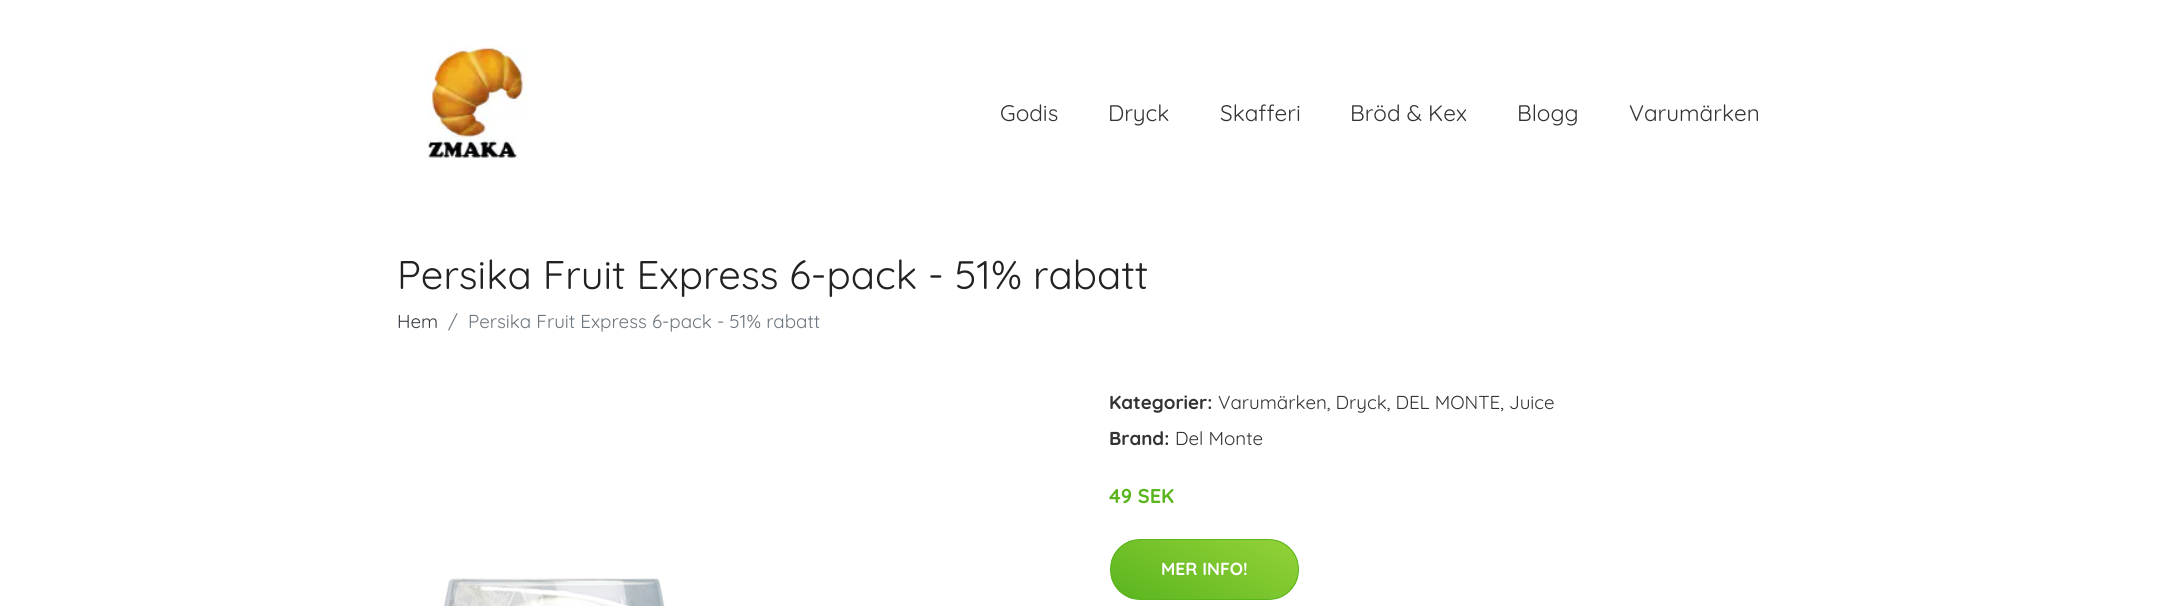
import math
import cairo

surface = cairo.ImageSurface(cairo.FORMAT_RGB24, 2181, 606)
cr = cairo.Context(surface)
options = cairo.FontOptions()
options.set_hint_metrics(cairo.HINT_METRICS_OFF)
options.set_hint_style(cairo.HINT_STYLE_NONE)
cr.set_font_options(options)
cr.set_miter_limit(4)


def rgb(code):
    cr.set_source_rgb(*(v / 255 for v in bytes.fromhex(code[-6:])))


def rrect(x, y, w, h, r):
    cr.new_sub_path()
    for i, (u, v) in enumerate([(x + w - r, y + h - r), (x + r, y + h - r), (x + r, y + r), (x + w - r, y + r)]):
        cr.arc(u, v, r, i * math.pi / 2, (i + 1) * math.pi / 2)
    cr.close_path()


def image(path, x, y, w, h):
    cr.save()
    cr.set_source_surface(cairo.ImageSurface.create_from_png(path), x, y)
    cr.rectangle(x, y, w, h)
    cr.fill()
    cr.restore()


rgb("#ffffff")
cr.paint()
image("img/1.png", 427, 46, 101, 112)
cr.save()
rrect(1110, 539, 189, 61, 30.5)
cr.clip()
gradient = cairo.LinearGradient(1173, 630, 1235, 508)
gradient.add_color_stop_rgba(0, 0.353, 0.71, 0.118, 1)
gradient.add_color_stop_rgba(1, 0.584, 0.824, 0.224, 1)
cr.set_source(gradient)
cr.rectangle(1111, 540, 187, 59)
cr.fill()
cr.restore()
rrect(1110.5, 539.5, 188, 60, 30)
rgb("#5ab51e")
cr.set_line_width(1)
cr.stroke()
image("img/2.png", 443, 578, 222, 28)
cr.select_font_face("Quicksand")
cr.set_font_size(22.5)
rgb("#333333")
for x, y, s in [
    (1000, 121, "Godis"),
    (1108, 121, "Dryck"),
    (1220, 121, "Skafferi"),
    (1350, 121, "Bröd & Kex"),
    (1517, 121, "Blogg"),
    (1629, 121, "Varumärken"),
]:
    cr.move_to(x, y)
    cr.show_text(s)
cr.set_font_size(40)
rgb("#222222")
cr.move_to(397, 289)
cr.show_text("Persika Fruit Express 6-pack - 51% rabatt")
cr.set_font_size(18.75)
rgb("#343a40")
cr.move_to(397, 328)
cr.show_text("Hem")
rgb("#6c757d")
cr.move_to(448, 328)
cr.show_text("/")
cr.move_to(468, 328)
cr.show_text("Persika Fruit Express 6-pack - 51% rabatt")
cr.select_font_face("Quicksand", cairo.FONT_SLANT_NORMAL, cairo.FONT_WEIGHT_BOLD)
rgb("#333333")
cr.move_to(1109, 409)
cr.show_text("Kategorier:")
cr.select_font_face("Quicksand")
cr.move_to(1218, 409)
cr.show_text("Varumärken, Dryck, DEL MONTE, Juice")
cr.select_font_face("Quicksand", cairo.FONT_SLANT_NORMAL, cairo.FONT_WEIGHT_BOLD)
cr.move_to(1109, 445)
cr.show_text("Brand:")
cr.select_font_face("Quicksand")
cr.move_to(1175, 445)
cr.show_text("Del Monte")
cr.select_font_face("Quicksand", cairo.FONT_SLANT_NORMAL, cairo.FONT_WEIGHT_BOLD)
cr.set_font_size(20)
rgb("#5ab51e")
cr.move_to(1109, 503)
cr.show_text("49 SEK")
cr.set_font_size(17.5)
rgb("#ffffff")
cr.move_to(1161, 575)
cr.show_text("MER INFO!")
surface.write_to_png("page.png")
